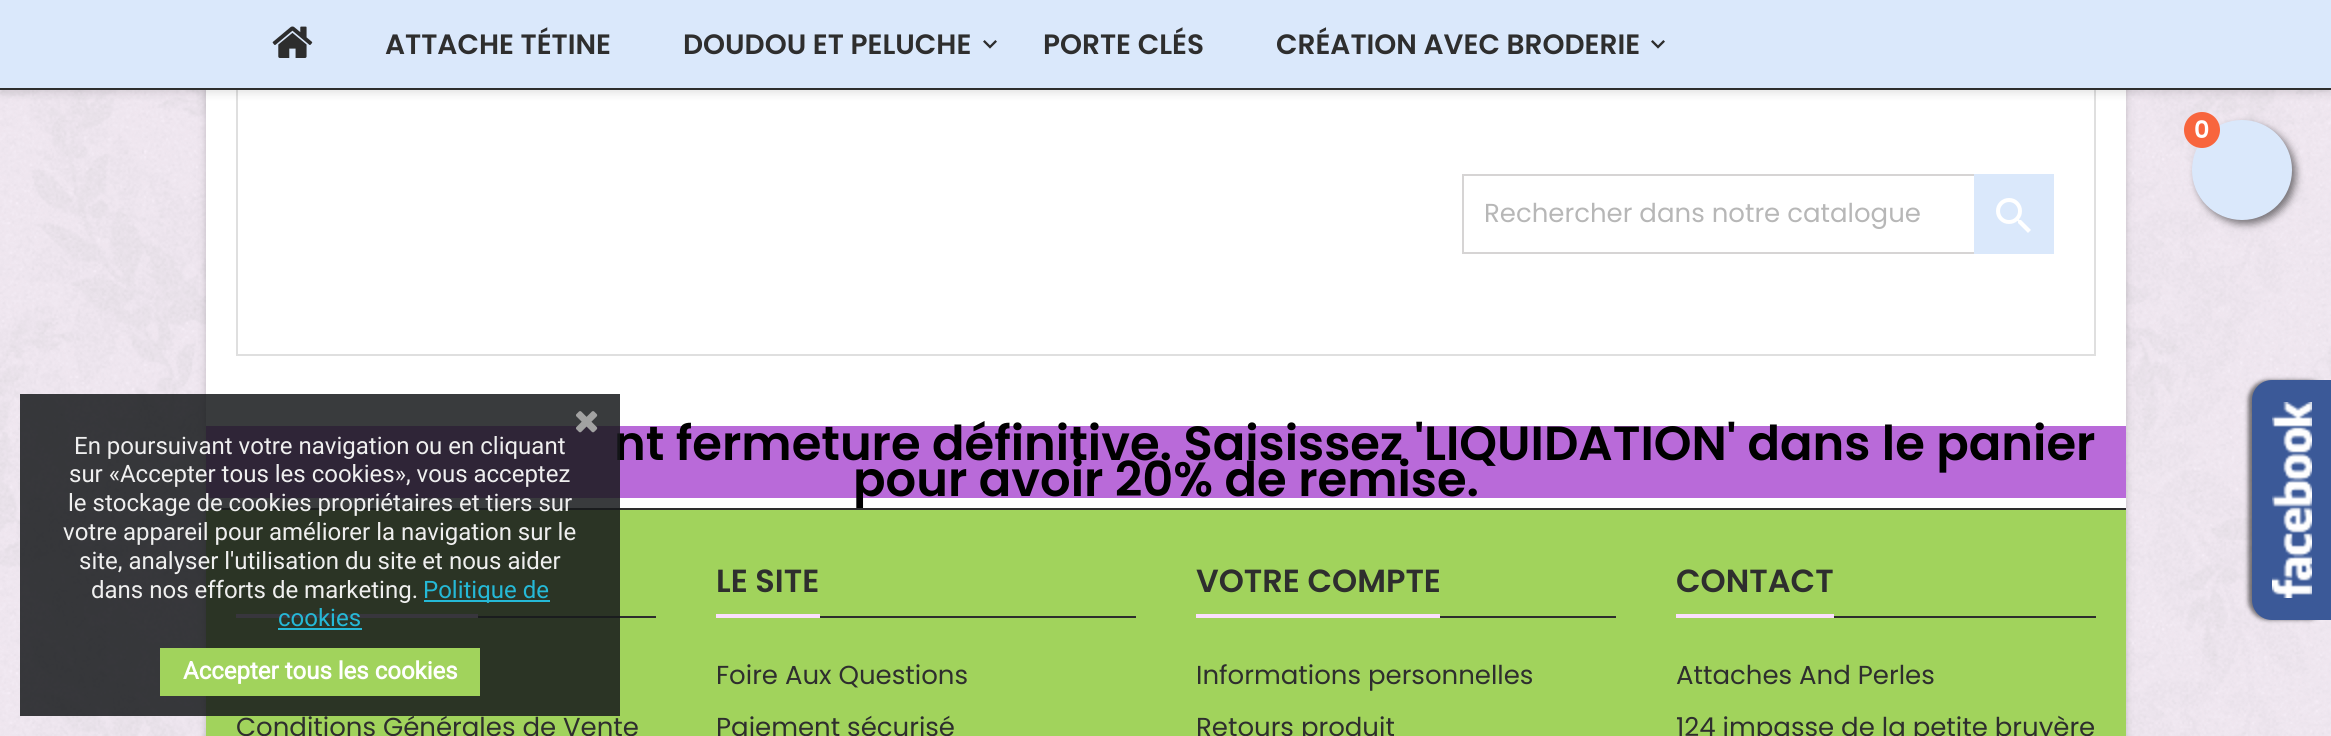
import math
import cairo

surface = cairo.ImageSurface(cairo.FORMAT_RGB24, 2331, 736)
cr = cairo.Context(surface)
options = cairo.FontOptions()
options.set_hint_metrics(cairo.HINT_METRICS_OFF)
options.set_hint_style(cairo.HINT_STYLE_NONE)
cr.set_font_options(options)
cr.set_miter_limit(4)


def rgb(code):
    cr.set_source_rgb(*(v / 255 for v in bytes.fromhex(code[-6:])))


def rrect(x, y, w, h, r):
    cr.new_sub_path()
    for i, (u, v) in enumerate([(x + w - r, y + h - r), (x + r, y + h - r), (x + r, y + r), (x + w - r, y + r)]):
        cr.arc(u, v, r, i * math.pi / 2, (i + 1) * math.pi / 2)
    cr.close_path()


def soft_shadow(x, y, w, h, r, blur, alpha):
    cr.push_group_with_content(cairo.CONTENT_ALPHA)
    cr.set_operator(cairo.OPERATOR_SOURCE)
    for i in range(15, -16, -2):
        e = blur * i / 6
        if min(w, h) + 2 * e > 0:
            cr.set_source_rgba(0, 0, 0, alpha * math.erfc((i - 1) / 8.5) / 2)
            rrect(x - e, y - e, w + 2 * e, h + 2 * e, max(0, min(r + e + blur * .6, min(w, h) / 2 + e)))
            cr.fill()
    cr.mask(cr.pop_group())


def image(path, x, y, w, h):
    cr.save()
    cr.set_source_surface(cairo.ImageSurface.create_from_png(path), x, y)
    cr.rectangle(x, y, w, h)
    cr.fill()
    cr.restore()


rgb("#f9f0fa")
cr.paint()
image("img/1.png", 0, 90, 2331, 646)
rgb("#000000")
soft_shadow(206, -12, 1920, 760, 0, 4, 0.2)
rgb("#ffffff")
cr.rectangle(206, 90, 1920, 418)
cr.fill()
cr.rectangle(237, 9, 1858, 346)
rgb("#dfdfdf")
cr.stroke()
rgb("#000000")
soft_shadow(0, 4, 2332, 90, 0, 4, 0.1)
rgb("#dae8fb")
cr.rectangle(0, 0, 2331, 88)
cr.fill()
rgb("#2d2d2d")
cr.rectangle(0, 88, 2331, 2)
cr.fill()
image("img/2.png", 272, 26, 41, 32)
image("img/3.png", 983, 40, 14, 9)
image("img/3.png", 1651, 40, 14, 9)
rgb("#000000")
soft_shadow(2196, 124, 100, 100, 50, 4, 0.5)
rgb("#dae8fb")
cr.arc(2242, 170, 50, 0, 2 * math.pi)
cr.fill()
rgb("#f8653d")
cr.arc(2202, 130, 18, 0, 2 * math.pi)
cr.fill()
cr.rectangle(1463, 175, 544, 78)
rgb("#d6d4d4")
cr.stroke()
rgb("#dae8fb")
cr.rectangle(1974, 174, 80, 80)
cr.fill()
image("img/4.png", 1996, 198, 35, 35)
rgb("#000000")
soft_shadow(2248, 380, 80, 240, 20, 2, 0.5)
rgb("#3b5998")
cr.new_path()
cr.move_to(2272, 380)
cr.line_to(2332, 380)
cr.line_to(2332, 620)
cr.line_to(2272, 620)
cr.curve_to(2261, 620, 2252, 611, 2252, 600)
cr.line_to(2252, 400)
cr.curve_to(2252, 389, 2261, 380, 2272, 380)
cr.close_path()
cr.fill()
image("img/5.png", 2272, 402, 40, 196)
for x, y, w, h, color in [
    (206, 426, 1920, 72, "#b96ad9"),
    (206, 510, 1920, 226, "#a1d35c"),
    (478, 616, 178, 2, "#2d2d2d"),
    (236, 614, 242, 4, "#fbdffe"),
    (820, 616, 316, 2, "#2d2d2d"),
    (716, 614, 104, 4, "#fbdffe"),
    (1440, 616, 176, 2, "#2d2d2d"),
    (1196, 614, 244, 4, "#fbdffe"),
    (1834, 616, 262, 2, "#2d2d2d"),
    (1676, 614, 158, 4, "#fbdffe"),
]:
    rgb(color)
    cr.rectangle(x, y, w, h)
    cr.fill()
cr.select_font_face("Poppins SemiBold")
cr.set_font_size(28)
rgb("#2e2e2e")
for x, y, s in [
    (385, 54, "ATTACHE TÉTINE"),
    (683, 54, "DOUDOU ET PELUCHE"),
    (1043, 54, "PORTE CLÉS"),
    (1276, 54, "CRÉATION AVEC BRODERIE"),
]:
    cr.move_to(x, y)
    cr.show_text(s)
cr.set_font_size(24)
rgb("#ffffff")
cr.move_to(2194, 138)
cr.show_text("0")
cr.select_font_face("Poppins")
cr.set_font_size(26)
rgb("#b7b7b7")
cr.move_to(1484, 222)
cr.show_text("Rechercher dans notre catalogue")
cr.select_font_face("Poppins SemiBold")
cr.set_font_size(48)
rgb("#000000")
cr.move_to(614, 460)
cr.show_text("nt fermeture définitive. Saisissez 'LIQUIDATION' dans le panier")
cr.move_to(853, 496)
cr.show_text("pour avoir 20% de remise.")
rgb("#2d2d2d")
cr.rectangle(206, 508, 1920, 2)
cr.fill()
cr.select_font_face("Poppins")
cr.set_font_size(26)
rgb("#2e2e2e")
cr.move_to(236, 736)
cr.show_text("Conditions Générales de Vente")
cr.select_font_face("Poppins SemiBold")
cr.set_font_size(32)
cr.move_to(716, 592)
cr.show_text("LE SITE")
cr.select_font_face("Poppins")
cr.set_font_size(26)
cr.move_to(716, 684)
cr.show_text("Foire Aux Questions")
cr.move_to(716, 736)
cr.show_text("Paiement sécurisé")
cr.select_font_face("Poppins SemiBold")
cr.set_font_size(32)
cr.move_to(1196, 592)
cr.show_text("VOTRE COMPTE")
cr.select_font_face("Poppins")
cr.set_font_size(26)
cr.move_to(1196, 684)
cr.show_text("Informations personnelles")
cr.move_to(1196, 736)
cr.show_text("Retours produit")
cr.select_font_face("Poppins SemiBold")
cr.set_font_size(32)
cr.move_to(1676, 592)
cr.show_text("CONTACT")
cr.select_font_face("Poppins")
cr.set_font_size(26)
cr.move_to(1676, 684)
cr.show_text("Attaches And Perles")
cr.move_to(1676, 736)
cr.show_text("124 impasse de la petite bruyère")
cr.set_source_rgba(0.09, 0.098, 0.11, 0.85)
cr.rectangle(20, 394, 600, 322)
cr.fill()
image("img/6.png", 576, 411, 22, 22)
cr.select_font_face("Roboto")
cr.set_font_size(24)
rgb("#efefef")
for x, y, s in [
    (74, 454, "En poursuivant votre navigation ou en cliquant"),
    (69, 482, "sur «Accepter tous les cookies», vous acceptez"),
    (68, 511, "le stockage de cookies propriétaires et tiers sur"),
    (63, 540, "votre appareil pour améliorer la navigation sur le"),
    (79, 569, "site, analyser l'utilisation du site et nous aider"),
    (91, 598, "dans nos efforts de marketing."),
]:
    cr.move_to(x, y)
    cr.show_text(s)
rgb("#25b9d7")
cr.rectangle(424, 600, 126, 2)
cr.fill()
cr.move_to(423, 598)
cr.show_text("Politique de")
cr.move_to(278, 626)
cr.show_text("cookies")
cr.rectangle(278, 628, 84, 2)
cr.fill()
rgb("#a1d35c")
cr.rectangle(160, 648, 320, 48)
cr.fill()
cr.select_font_face("Roboto", cairo.FONT_SLANT_NORMAL, cairo.FONT_WEIGHT_BOLD)
rgb("#ffffff")
cr.move_to(183, 679)
cr.show_text("Accepter tous les cookies")
surface.write_to_png("page.png")
